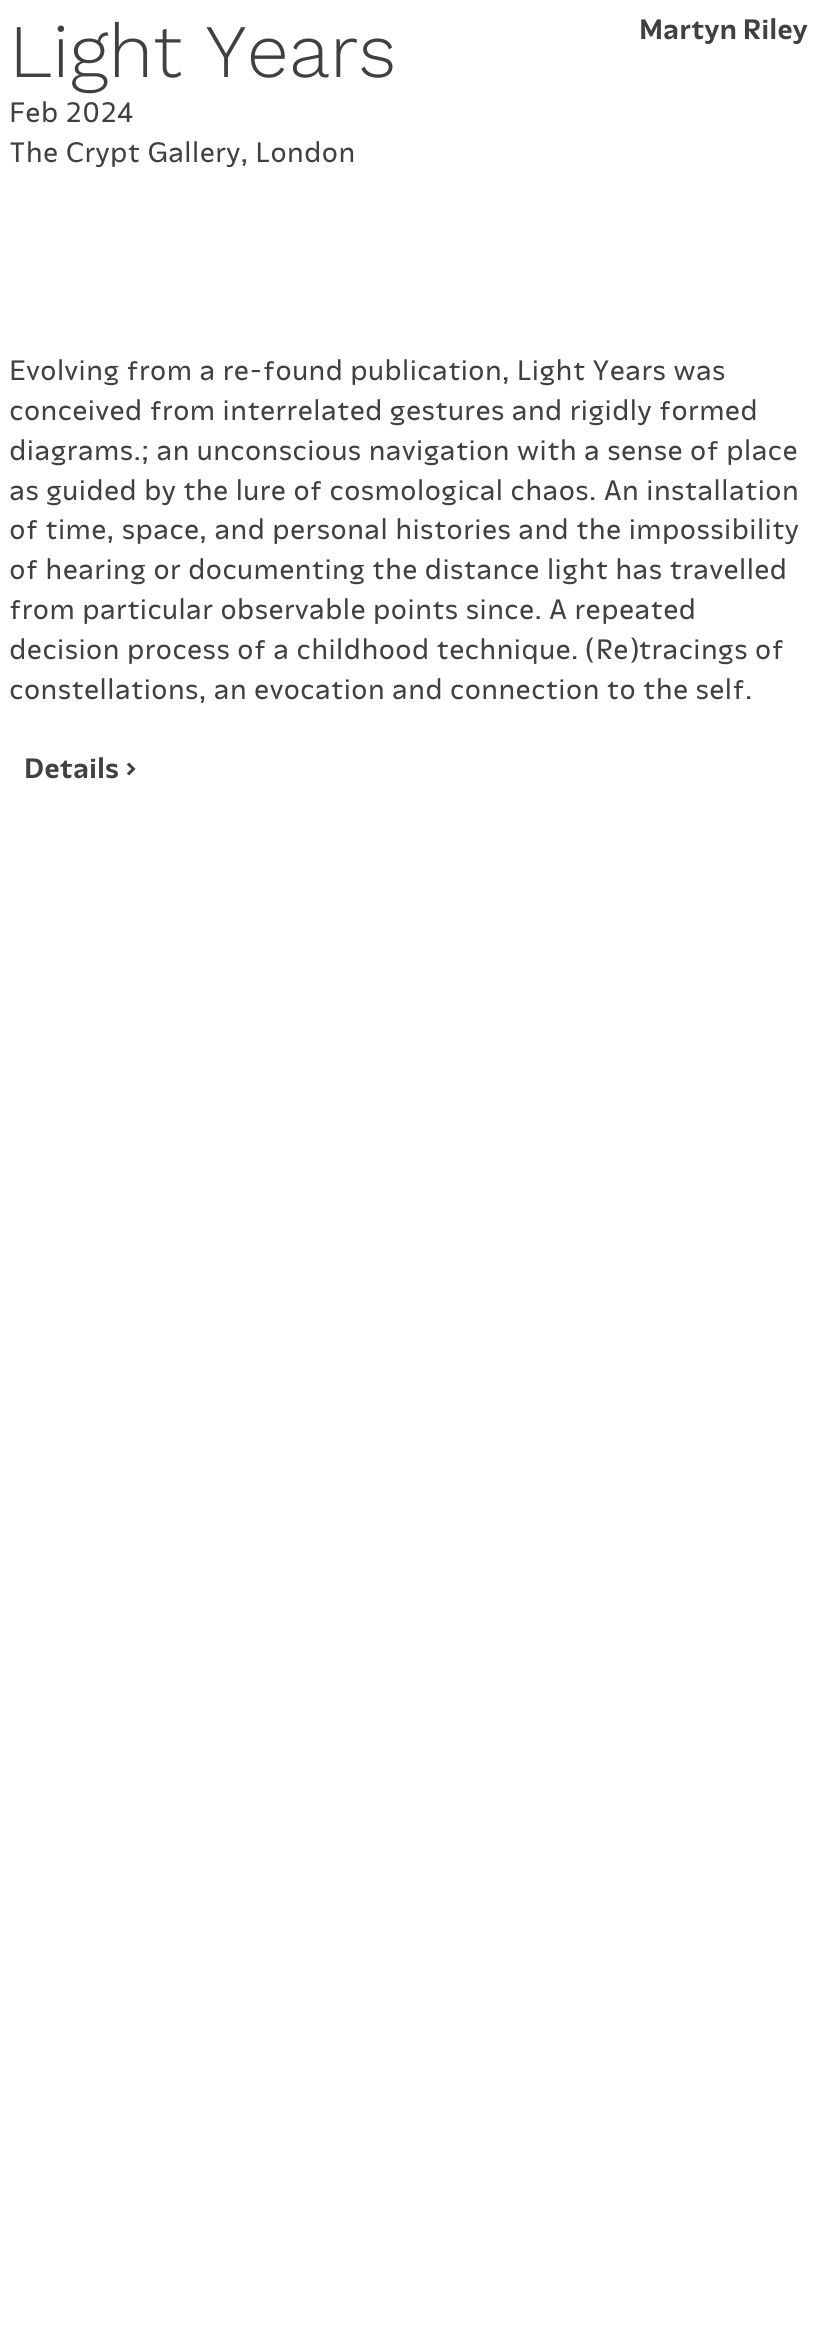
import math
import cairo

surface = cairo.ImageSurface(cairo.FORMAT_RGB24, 816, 2327)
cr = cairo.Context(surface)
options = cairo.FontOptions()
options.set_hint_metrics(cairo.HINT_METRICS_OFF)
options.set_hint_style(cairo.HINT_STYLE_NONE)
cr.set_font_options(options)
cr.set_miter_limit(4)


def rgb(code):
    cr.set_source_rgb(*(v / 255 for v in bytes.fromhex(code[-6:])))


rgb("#ffffff")
cr.paint()
cr.select_font_face("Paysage", cairo.FONT_SLANT_NORMAL, cairo.FONT_WEIGHT_BOLD)
cr.set_font_size(30.6)
rgb("#404040")
cr.move_to(639, 39)
cr.show_text("Martyn Riley")
cr.select_font_face("Work Sans Light")
cr.set_font_size(75.5)
cr.move_to(9, 77)
cr.show_text("Light Years")
cr.select_font_face("Paysage")
cr.set_font_size(30.6)
for x, y, s in [
    (9, 122, "Feb 2024"),
    (9, 162, "The Crypt Gallery, London"),
    (9, 380, "Evolving from a re-found publication, Light Years was"),
    (9, 420, "conceived from interrelated gestures and rigidly formed"),
    (9, 460, "diagrams.; an unconscious navigation with a sense of place"),
    (9, 500, "as guided by the lure of cosmological chaos. An installation"),
    (9, 539, "of time, space, and personal histories and the impossibility"),
    (9, 579, "of hearing or documenting the distance light has travelled"),
    (9, 619, "from particular observable points since. A repeated"),
    (9, 659, "decision process of a childhood technique. (Re)tracings of"),
    (9, 699, "constellations, an evocation and connection to the self."),
]:
    cr.move_to(x, y)
    cr.show_text(s)
cr.select_font_face("Paysage", cairo.FONT_SLANT_NORMAL, cairo.FONT_WEIGHT_BOLD)
cr.move_to(24, 778)
cr.show_text("Details >")
surface.write_to_png("page.png")
